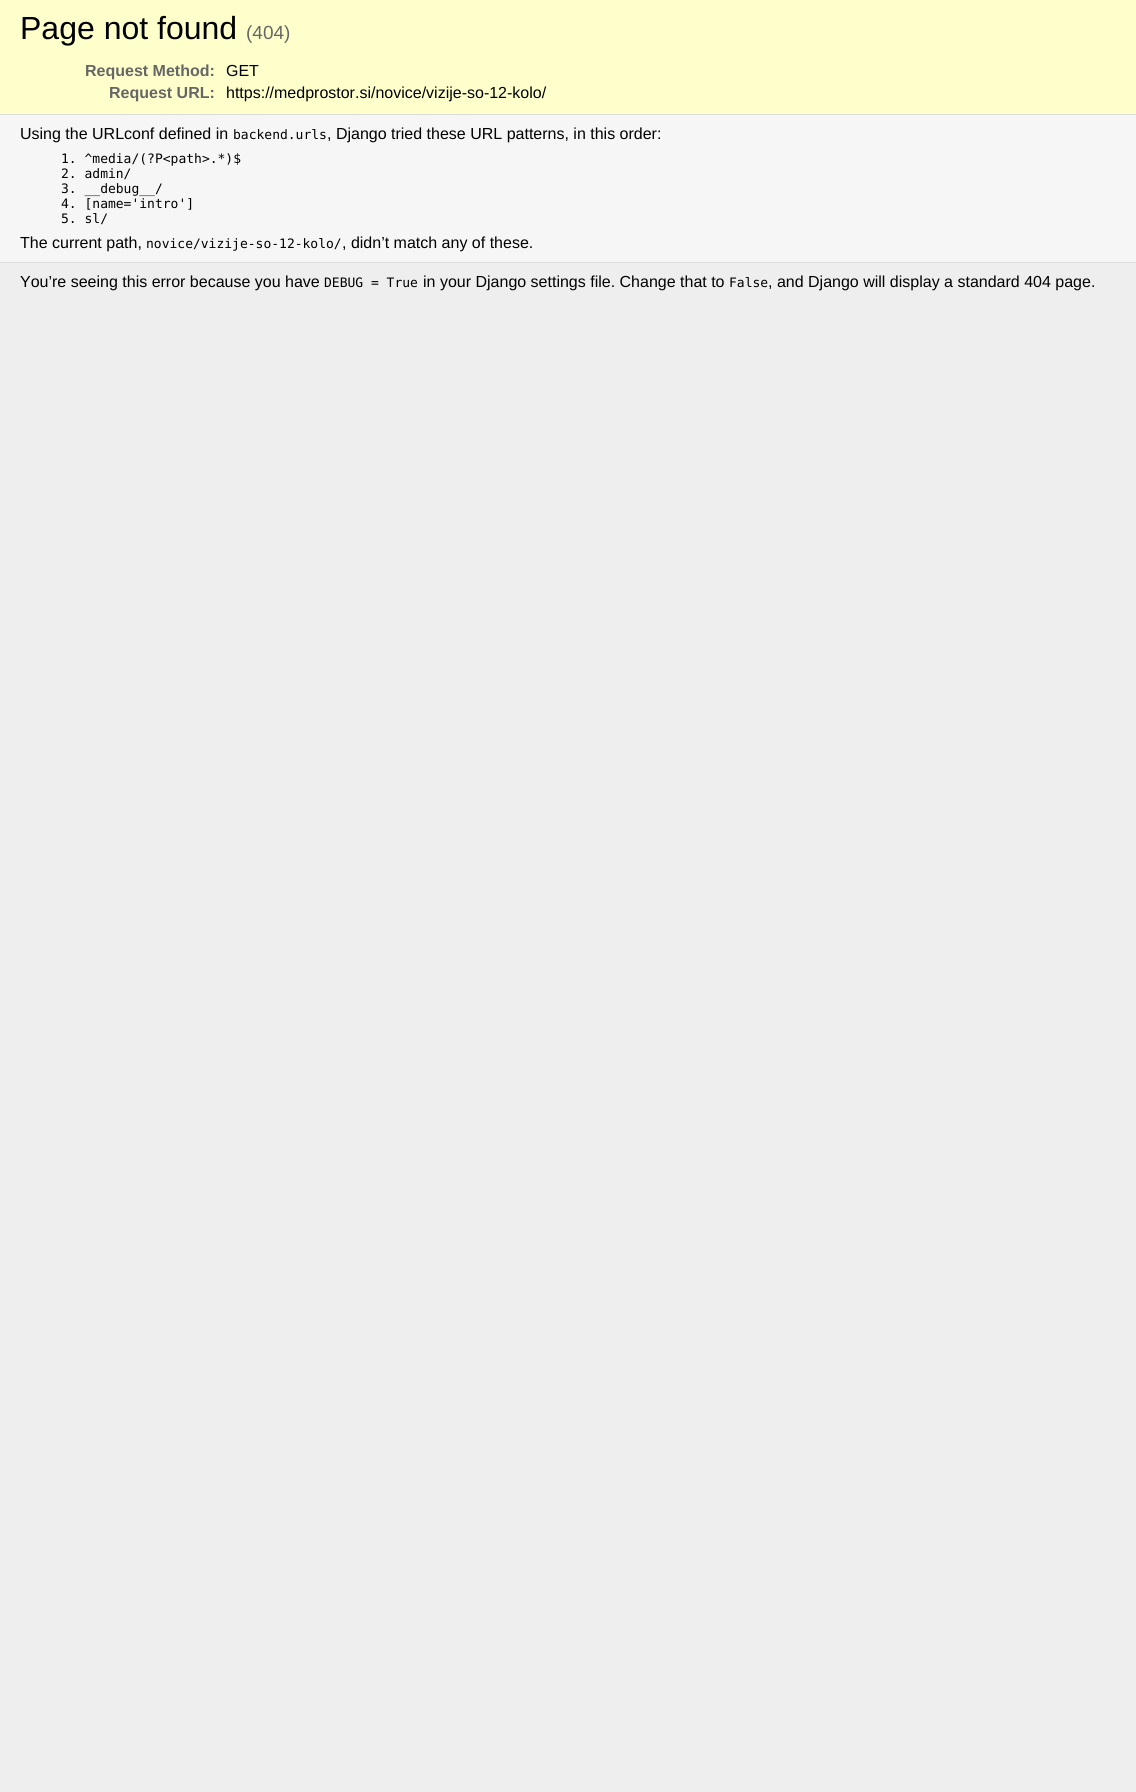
import math
import cairo

surface = cairo.ImageSurface(cairo.FORMAT_RGB24, 1136, 1792)
cr = cairo.Context(surface)
options = cairo.FontOptions()
options.set_hint_metrics(cairo.HINT_METRICS_OFF)
options.set_hint_style(cairo.HINT_STYLE_NONE)
cr.set_font_options(options)
cr.set_miter_limit(4)


def rgb(code):
    cr.set_source_rgb(*(v / 255 for v in bytes.fromhex(code[-6:])))


rgb("#eeeeee")
cr.paint()
for x, y, w, h, color in [
    (0, 0, 1136, 114, "#ffffcc"),
    (0, 114, 1136, 1, "#dddddd"),
    (0, 115, 1136, 147, "#f6f6f6"),
    (0, 262, 1136, 1, "#dddddd"),
]:
    rgb(color)
    cr.rectangle(x, y, w, h)
    cr.fill()
cr.select_font_face("Liberation Sans")
cr.set_font_size(32)
rgb("#000000")
cr.move_to(20, 39)
cr.show_text("Page not found")
cr.set_font_size(19)
rgb("#666666")
cr.move_to(246, 39)
cr.show_text("(404)")
cr.select_font_face("Liberation Sans", cairo.FONT_SLANT_NORMAL, cairo.FONT_WEIGHT_BOLD)
cr.set_font_size(16)
cr.move_to(85, 76)
cr.show_text("Request Method:")
cr.select_font_face("Liberation Sans")
rgb("#000000")
cr.move_to(226, 76)
cr.show_text("GET")
cr.select_font_face("Liberation Sans", cairo.FONT_SLANT_NORMAL, cairo.FONT_WEIGHT_BOLD)
rgb("#666666")
cr.move_to(109, 98)
cr.show_text("Request URL:")
cr.select_font_face("Liberation Sans")
rgb("#000000")
cr.move_to(226, 98)
cr.show_text("https://medprostor.si/novice/vizije-so-12-kolo/")
cr.move_to(20, 139)
cr.show_text("Using the URLconf defined in")
cr.select_font_face("DejaVu Sans Mono")
cr.set_font_size(13)
cr.move_to(233, 139)
cr.show_text("backend.urls")
cr.select_font_face("Liberation Sans")
cr.set_font_size(16)
cr.move_to(327, 139)
cr.show_text(", Django tried these URL patterns, in this order:")
cr.select_font_face("DejaVu Sans Mono")
cr.set_font_size(13)
for x, y, s in [
    (61, 163, "1. ^media/(?P<path>.*)$"),
    (61, 178, "2. admin/"),
    (61, 193, "3. __debug__/"),
    (61, 208, "4. [name='intro']"),
    (61, 223, "5. sl/"),
]:
    cr.move_to(x, y)
    cr.show_text(s)
cr.select_font_face("Liberation Sans")
cr.set_font_size(16)
cr.move_to(20, 248)
cr.show_text("The current path,")
cr.select_font_face("DejaVu Sans Mono")
cr.set_font_size(13)
cr.move_to(146, 248)
cr.show_text("novice/vizije-so-12-kolo/")
cr.select_font_face("Liberation Sans")
cr.set_font_size(16)
cr.move_to(342, 248)
cr.show_text(", didn’t match any of these.")
cr.move_to(20, 287)
cr.show_text("You’re seeing this error because you have")
cr.select_font_face("DejaVu Sans Mono")
cr.set_font_size(13)
cr.move_to(324, 287)
cr.show_text("DEBUG = True")
cr.select_font_face("Liberation Sans")
cr.set_font_size(16)
cr.move_to(423, 287)
cr.show_text("in your Django settings file. Change that to")
cr.select_font_face("DejaVu Sans Mono")
cr.set_font_size(13)
cr.move_to(729, 287)
cr.show_text("False")
cr.select_font_face("Liberation Sans")
cr.set_font_size(16)
cr.move_to(768, 287)
cr.show_text(", and Django will display a standard 404 page.")
surface.write_to_png("page.png")
